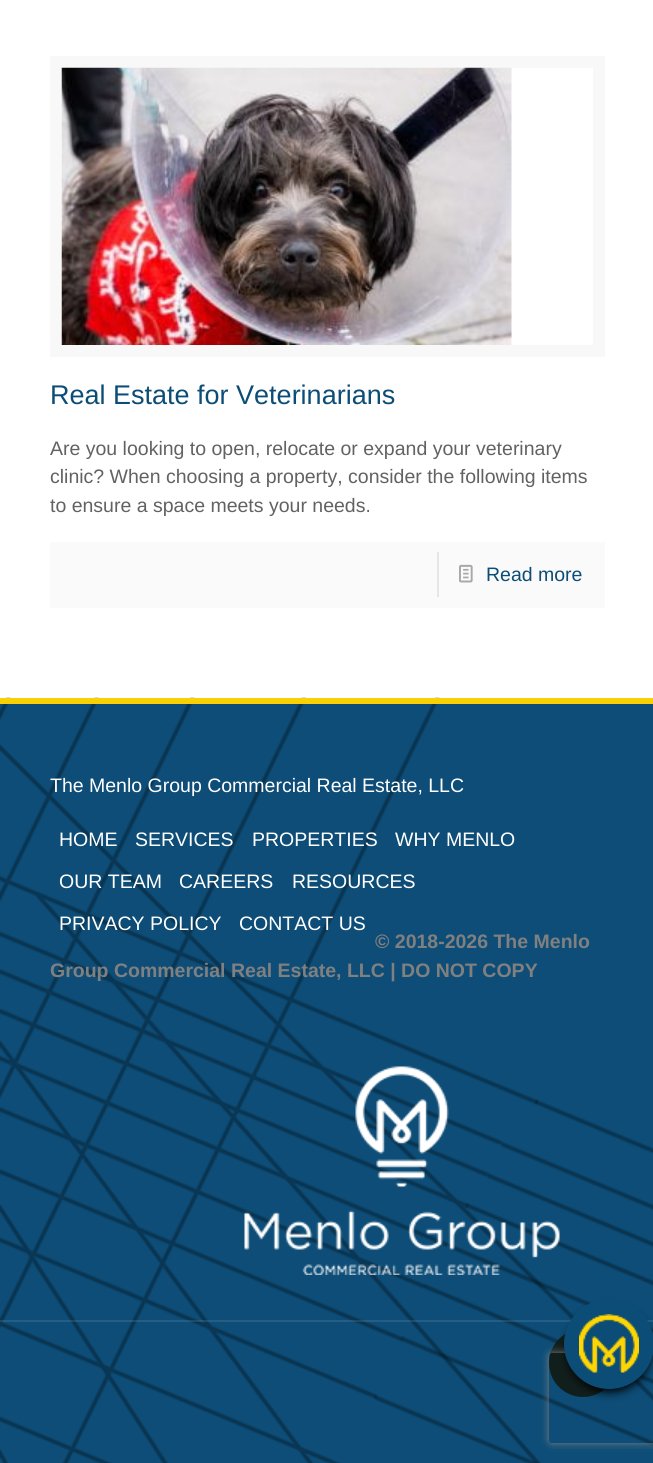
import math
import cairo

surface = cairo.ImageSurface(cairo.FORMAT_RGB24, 653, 1463)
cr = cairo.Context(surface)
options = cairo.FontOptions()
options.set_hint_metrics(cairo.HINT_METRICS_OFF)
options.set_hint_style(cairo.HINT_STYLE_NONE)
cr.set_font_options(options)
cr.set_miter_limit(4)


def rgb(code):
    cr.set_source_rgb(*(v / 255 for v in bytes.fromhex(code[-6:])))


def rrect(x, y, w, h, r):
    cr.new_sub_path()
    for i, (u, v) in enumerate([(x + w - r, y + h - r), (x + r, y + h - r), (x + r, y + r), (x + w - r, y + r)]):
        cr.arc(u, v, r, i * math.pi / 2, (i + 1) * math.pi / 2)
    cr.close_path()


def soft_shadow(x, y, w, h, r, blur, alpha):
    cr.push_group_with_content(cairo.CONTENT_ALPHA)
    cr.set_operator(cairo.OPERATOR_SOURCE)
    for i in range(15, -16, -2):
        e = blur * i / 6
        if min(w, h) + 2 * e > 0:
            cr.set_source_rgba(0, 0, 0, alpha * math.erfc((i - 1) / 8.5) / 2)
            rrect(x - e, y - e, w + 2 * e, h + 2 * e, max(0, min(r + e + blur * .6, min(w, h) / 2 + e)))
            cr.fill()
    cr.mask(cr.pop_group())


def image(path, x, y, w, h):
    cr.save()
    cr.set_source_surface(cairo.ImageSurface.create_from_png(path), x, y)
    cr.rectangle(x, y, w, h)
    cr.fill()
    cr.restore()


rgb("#ffffff")
cr.paint()
cr.rectangle(56, 62, 543, 289)
rgb("#f8f8f8")
cr.set_line_width(12)
cr.stroke()
image("img/1.png", 61, 67, 451, 278)
rgb("#fafafa")
cr.rectangle(50, 542, 555, 66)
cr.fill()
rgb("#e6e6e6")
cr.rectangle(437, 552, 2, 45)
cr.fill()
image("img/2.png", 459, 564, 14, 19)
rgb("#0d4d77")
cr.rectangle(0, 704, 653, 759)
cr.fill()
image("img/3.png", 0, 697, 653, 766)
rgb("#f9d003")
cr.rectangle(0, 698, 653, 6)
cr.fill()
image("img/4.png", 244, 1066, 316, 209)
cr.set_source_rgba(1, 1, 1, 0.1)
cr.rectangle(0, 1320, 653, 2)
cr.fill()
rgb("#111f1c")
cr.arc(583, 1363, 34, 0, 2 * math.pi)
cr.fill()
rgb("#000000")
soft_shadow(567, 1308, 84, 84, 42, 4.5, 1)
cr.save()
cr.set_fill_rule(cairo.FILL_RULE_EVEN_ODD)
cr.new_path()
cr.move_to(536, 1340)
cr.line_to(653, 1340)
cr.line_to(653, 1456)
cr.line_to(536, 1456)
cr.close_path()
cr.move_to(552, 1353)
cr.line_to(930, 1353)
cr.curve_to(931.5, 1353, 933, 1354.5, 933, 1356)
cr.line_to(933, 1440)
cr.curve_to(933, 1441.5, 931.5, 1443, 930, 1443)
cr.line_to(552, 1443)
cr.curve_to(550.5, 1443, 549, 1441.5, 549, 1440)
cr.line_to(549, 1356)
cr.curve_to(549, 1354.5, 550.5, 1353, 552, 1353)
cr.close_path()
cr.clip()
rgb("#808080")
soft_shadow(549, 1353, 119, 90, 3, 4, 1)
cr.restore()
rgb("#0c4d77")
cr.arc(609, 1344, 45, 0, 2 * math.pi)
cr.fill()
image("img/5.png", 579, 1314, 60, 59)
cr.select_font_face("Liberation Sans")
cr.set_font_size(27)
cr.move_to(50, 404)
cr.show_text("Real Estate for Veterinarians")
cr.set_font_size(19.5)
rgb("#626262")
for x, y, s in [
    (50, 455, "Are you looking to open, relocate or expand your veterinary"),
    (50, 483, "clinic? When choosing a property, consider the following items"),
    (50, 512, "to ensure a space meets your needs."),
]:
    cr.move_to(x, y)
    cr.show_text(s)
rgb("#0c4d77")
cr.move_to(486, 581)
cr.show_text("Read more")
rgb("#ffffff")
for x, y, s in [
    (50, 792, "The Menlo Group Commercial Real Estate, LLC"),
    (59, 846, "HOME"),
    (135, 846, "SERVICES"),
    (252, 846, "PROPERTIES"),
    (395, 846, "WHY MENLO"),
    (59, 888, "OUR TEAM"),
    (179, 888, "CAREERS"),
    (292, 888, "RESOURCES"),
    (59, 930, "PRIVACY POLICY"),
    (239, 930, "CONTACT US"),
]:
    cr.move_to(x, y)
    cr.show_text(s)
cr.select_font_face("Liberation Sans", cairo.FONT_SLANT_NORMAL, cairo.FONT_WEIGHT_BOLD)
rgb("#808080")
cr.move_to(375, 948)
cr.show_text("© 2018-2026 The Menlo")
cr.move_to(50, 977)
cr.show_text("Group Commercial Real Estate, LLC | DO NOT COPY")
surface.write_to_png("page.png")
